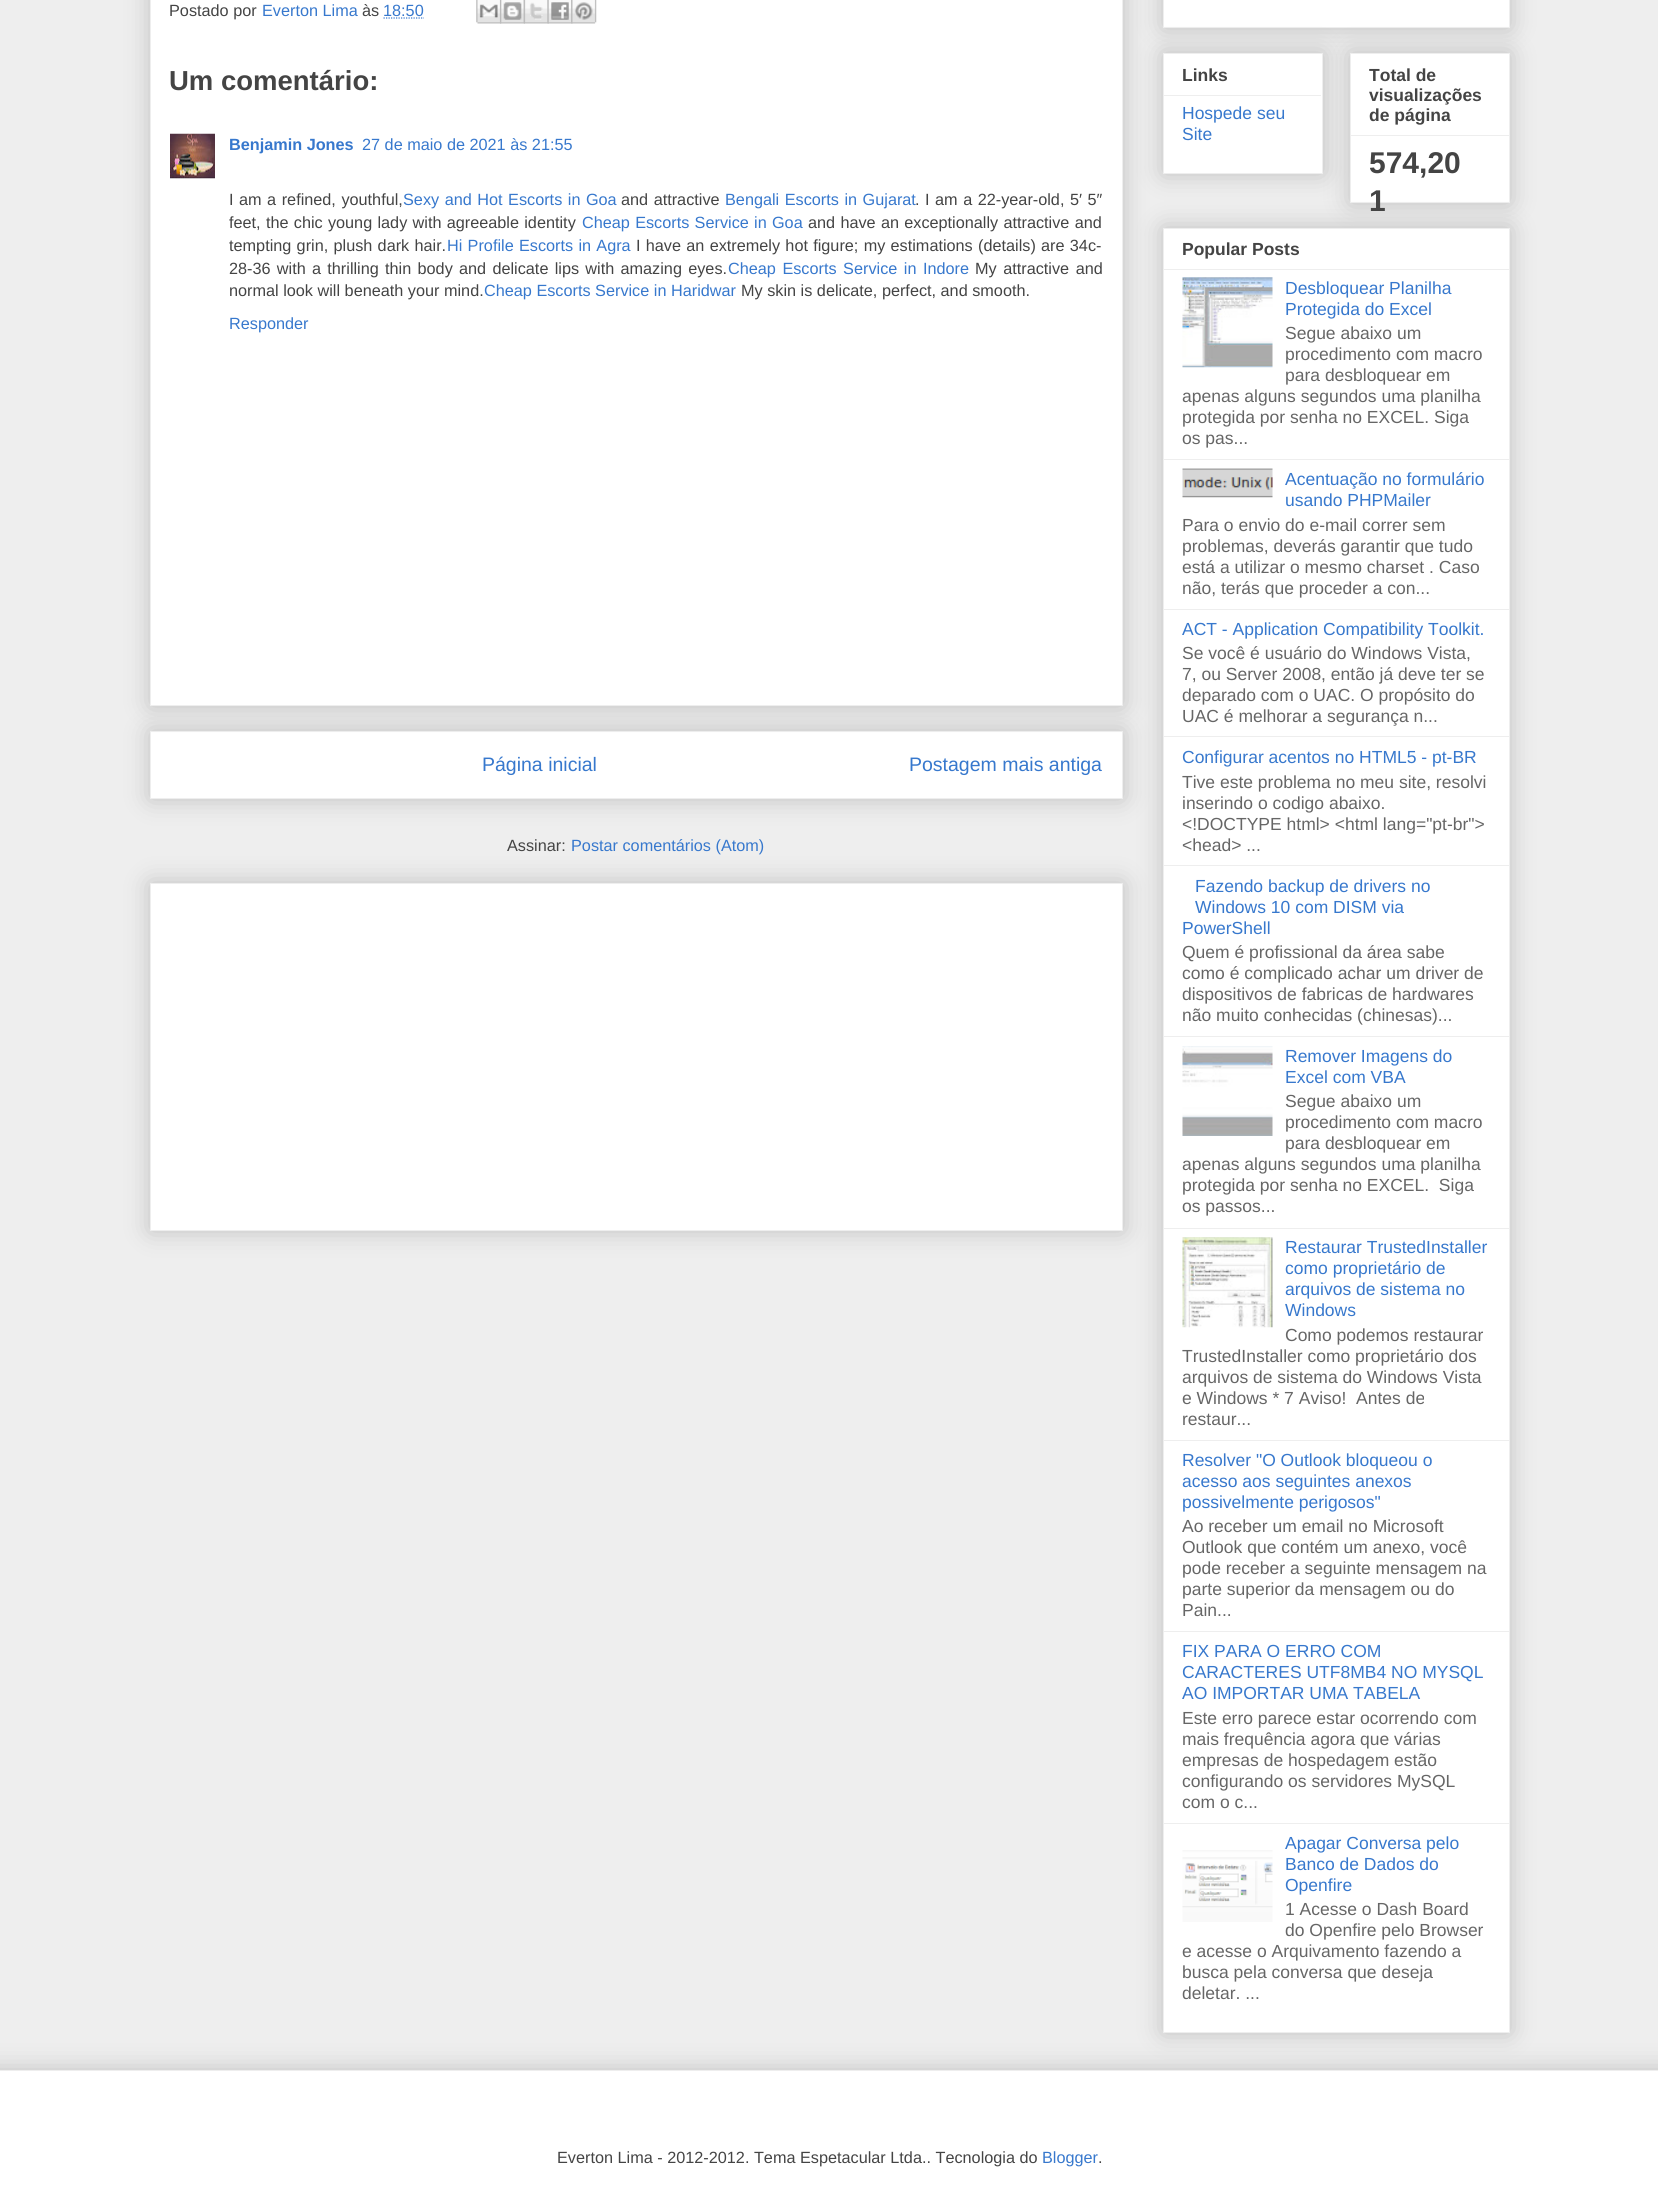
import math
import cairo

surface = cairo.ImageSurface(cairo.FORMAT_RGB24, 1658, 2194)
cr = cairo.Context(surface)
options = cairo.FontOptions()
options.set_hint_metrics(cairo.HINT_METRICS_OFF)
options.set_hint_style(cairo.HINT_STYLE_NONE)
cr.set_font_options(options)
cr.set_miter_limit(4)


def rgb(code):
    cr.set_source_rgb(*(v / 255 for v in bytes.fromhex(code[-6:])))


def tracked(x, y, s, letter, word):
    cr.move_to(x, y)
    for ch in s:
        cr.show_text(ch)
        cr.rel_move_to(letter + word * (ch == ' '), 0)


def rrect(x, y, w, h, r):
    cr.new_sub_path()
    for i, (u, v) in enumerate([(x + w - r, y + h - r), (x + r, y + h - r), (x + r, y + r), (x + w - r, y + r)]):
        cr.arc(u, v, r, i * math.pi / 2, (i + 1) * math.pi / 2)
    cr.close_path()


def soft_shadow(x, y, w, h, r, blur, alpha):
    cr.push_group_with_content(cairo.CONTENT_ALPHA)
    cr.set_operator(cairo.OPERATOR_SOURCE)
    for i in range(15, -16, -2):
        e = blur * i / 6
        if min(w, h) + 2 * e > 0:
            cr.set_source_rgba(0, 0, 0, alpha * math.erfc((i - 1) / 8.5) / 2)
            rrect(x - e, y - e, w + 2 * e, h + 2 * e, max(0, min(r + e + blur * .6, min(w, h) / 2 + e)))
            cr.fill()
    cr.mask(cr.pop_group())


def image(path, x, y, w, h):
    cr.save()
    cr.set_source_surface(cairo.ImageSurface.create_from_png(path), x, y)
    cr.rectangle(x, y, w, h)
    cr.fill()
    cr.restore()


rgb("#eeeeee")
cr.paint()
rgb("#000000")
soft_shadow(150, 731, 973, 68, 0, 12.5, 0.2)
rgb("#ffffff")
cr.rectangle(150.5, 731.5, 972, 67)
cr.fill_preserve()
rgb("#eeeeee")
cr.set_line_width(1)
cr.stroke()
rgb("#000000")
soft_shadow(150, -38, 973, 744, 0, 12.5, 0.2)
rgb("#ffffff")
cr.rectangle(150.5, -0.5, 972, 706)
cr.fill_preserve()
rgb("#eeeeee")
cr.stroke()
cr.new_path()
cr.move_to(383.5, 18)
cr.line_to(424, 18)
rgb("#3778cd")
cr.set_line_width(1.2)
cr.set_dash([1.25, 1.25])
cr.stroke()
image("img/1.png", 476, 0, 26, 24)
image("img/2.png", 500, 0, 25, 24)
image("img/3.png", 523, 0, 26, 24)
image("img/4.png", 547, 0, 26, 24)
image("img/5.png", 571, 0, 26, 24)
image("img/6.png", 170, 133, 45, 46)
rgb("#000000")
soft_shadow(150, 883, 973, 348, 0, 12.5, 0.2)
rgb("#ffffff")
cr.rectangle(150.5, 883.5, 972, 347)
cr.fill_preserve()
rgb("#eeeeee")
cr.set_line_width(1)
cr.set_dash([])
cr.stroke()
rgb("#000000")
soft_shadow(1163, -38, 347, 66, 0, 12.5, 0.2)
rgb("#ffffff")
cr.rectangle(1163.5, -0.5, 346, 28)
cr.fill_preserve()
rgb("#eeeeee")
cr.stroke()
rgb("#000000")
soft_shadow(1163, 53, 160, 121, 0, 12.5, 0.2)
rgb("#ffffff")
cr.rectangle(1163.5, 53.5, 159, 120)
cr.fill_preserve()
rgb("#eeeeee")
cr.stroke()
cr.rectangle(1164, 95, 157, 1)
cr.fill()
rgb("#000000")
soft_shadow(1350, 53, 160, 150, 0, 12.5, 0.2)
rgb("#ffffff")
cr.rectangle(1350.5, 53.5, 159, 149)
cr.fill_preserve()
rgb("#eeeeee")
cr.stroke()
cr.rectangle(1351, 135, 158, 1)
cr.fill()
rgb("#000000")
soft_shadow(1163, 228, 347, 1805, 0, 12.5, 0.2)
rgb("#ffffff")
cr.rectangle(1163.5, 228.5, 346, 1804)
cr.fill_preserve()
rgb("#eeeeee")
cr.stroke()
cr.rectangle(1164, 269, 345, 1)
cr.fill()
image("img/7.png", 1182, 277, 91, 91)
cr.rectangle(1164, 459, 345, 1)
cr.fill()
image("img/8.png", 1182, 468, 91, 30)
for x, y, w, h, color in [
    (1164, 609, 345, 1, "#eeeeee"),
    (1164, 736, 345, 1, "#eeeeee"),
    (1164, 865, 345, 1, "#eeeeee"),
    (1164, 1036, 345, 1, "#eeeeee"),
]:
    rgb(color)
    cr.rectangle(x, y, w, h)
    cr.fill()
image("img/9.png", 1182, 1046, 91, 90)
cr.rectangle(1164, 1228, 345, 1)
cr.fill()
image("img/10.png", 1182, 1237, 91, 91)
for x, y, w, h, color in [
    (1164, 1440, 345, 1, "#eeeeee"),
    (1164, 1631, 345, 1, "#eeeeee"),
    (1164, 1823, 345, 1, "#eeeeee"),
]:
    rgb(color)
    cr.rectangle(x, y, w, h)
    cr.fill()
image("img/11.png", 1182, 1850, 91, 72)
rgb("#000000")
soft_shadow(-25, 2070, 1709, 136, 0, 12.5, 0.2)
rgb("#ffffff")
cr.rectangle(0, 2071, 1658, 123)
cr.fill()
rgb("#eeeeee")
cr.rectangle(0, 2070, 1658, 1)
cr.fill()
cr.select_font_face("Liberation Sans")
cr.set_font_size(16.25)
rgb("#444444")
cr.move_to(169, 16)
cr.show_text("Postado por")
rgb("#3778cd")
cr.move_to(262, 16)
cr.show_text("Everton Lima")
rgb("#444444")
cr.move_to(362, 16)
cr.show_text("às")
rgb("#3778cd")
cr.move_to(383, 16)
cr.show_text("18:50")
cr.select_font_face("Liberation Sans", cairo.FONT_SLANT_NORMAL, cairo.FONT_WEIGHT_BOLD)
cr.set_font_size(27.5)
rgb("#444444")
cr.move_to(169, 90)
cr.show_text("Um comentário:")
cr.set_font_size(16.25)
rgb("#3778cd")
cr.move_to(229, 150)
cr.show_text("Benjamin Jones")
cr.select_font_face("Liberation Sans")
cr.move_to(362, 150)
cr.show_text("27 de maio de 2021 às 21:55")
rgb("#444444")
tracked(229, 205, "I am a refined, youthful,", 0, 1)
rgb("#3778cd")
tracked(403, 205, "Sexy and Hot Escorts in Goa", 0, 1)
rgb("#444444")
tracked(621, 205, "and attractive", 0, 1)
rgb("#3778cd")
tracked(725, 205, "Bengali Escorts in Gujarat", 0, 1)
rgb("#444444")
tracked(915, 205, ". I am a 22-year-old, 5′ 5″", 0, 1)
tracked(229, 228, "feet, the chic young lady with agreeable identity", 0, 0.75)
rgb("#3778cd")
tracked(582, 228, "Cheap Escorts Service in Goa", 0, 0.75)
rgb("#444444")
tracked(808, 228, "and have an exceptionally attractive and", 0, 0.75)
tracked(229, 251, "tempting grin, plush dark hair.", 0, 0.75)
rgb("#3778cd")
tracked(447, 251, "Hi Profile Escorts in Agra", 0, 0.75)
rgb("#444444")
tracked(636, 251, "I have an extremely hot figure; my estimations (details) are 34c-", 0, 0.75)
tracked(229, 274, "28-36 with a thrilling thin body and delicate lips with amazing eyes.", 0, 1.75)
rgb("#3778cd")
tracked(728, 274, "Cheap Escorts Service in Indore", 0, 2)
rgb("#444444")
tracked(975, 274, "My attractive and", 0, 2)
cr.move_to(229, 296)
cr.show_text("normal look will beneath your mind.")
rgb("#3778cd")
cr.move_to(484, 296)
cr.show_text("Cheap Escorts Service in Haridwar")
rgb("#444444")
cr.move_to(741, 296)
cr.show_text("My skin is delicate, perfect, and smooth.")
rgb("#3778cd")
cr.move_to(229, 329)
cr.show_text("Responder")
cr.set_font_size(19.5)
cr.move_to(482, 771)
cr.show_text("Página inicial")
cr.move_to(909, 771)
cr.show_text("Postagem mais antiga")
cr.set_font_size(16.25)
rgb("#444444")
cr.move_to(507, 851)
cr.show_text("Assinar:")
rgb("#3778cd")
cr.move_to(571, 851)
cr.show_text("Postar comentários (Atom)")
cr.select_font_face("Liberation Sans", cairo.FONT_SLANT_NORMAL, cairo.FONT_WEIGHT_BOLD)
cr.set_font_size(17.5)
rgb("#444444")
cr.move_to(1182, 81)
cr.show_text("Links")
cr.select_font_face("Liberation Sans")
rgb("#3778cd")
cr.move_to(1182, 119)
cr.show_text("Hospede seu")
cr.move_to(1182, 140)
cr.show_text("Site")
cr.select_font_face("Liberation Sans", cairo.FONT_SLANT_NORMAL, cairo.FONT_WEIGHT_BOLD)
rgb("#444444")
for x, y, s in [
    (1369, 81, "Total de"),
    (1369, 101, "visualizações"),
    (1369, 121, "de página"),
]:
    cr.move_to(x, y)
    cr.show_text(s)
cr.set_font_size(30)
cr.move_to(1369, 173)
cr.show_text("574,20")
cr.move_to(1369, 211)
cr.show_text("1")
cr.set_font_size(17.5)
cr.move_to(1182, 255)
cr.show_text("Popular Posts")
cr.select_font_face("Liberation Sans")
rgb("#3778cd")
cr.move_to(1285, 294)
cr.show_text("Desbloquear Planilha")
cr.move_to(1285, 315)
cr.show_text("Protegida do Excel")
rgb("#666666")
for x, y, s in [
    (1285, 339, "Segue abaixo um"),
    (1285, 360, "procedimento com macro"),
    (1285, 381, "para desbloquear em"),
    (1182, 402, "apenas alguns segundos uma planilha"),
    (1182, 423, "protegida por senha no EXCEL. Siga"),
    (1182, 444, "os pas..."),
]:
    cr.move_to(x, y)
    cr.show_text(s)
rgb("#3778cd")
cr.move_to(1285, 485)
cr.show_text("Acentuação no formulário")
cr.move_to(1285, 506)
cr.show_text("usando PHPMailer")
rgb("#666666")
for x, y, s in [
    (1182, 531, "Para o envio do e-mail correr sem"),
    (1182, 552, "problemas, deverás garantir que tudo"),
    (1182, 573, "está a utilizar o mesmo charset . Caso"),
    (1182, 594, "não, terás que proceder a con..."),
]:
    cr.move_to(x, y)
    cr.show_text(s)
rgb("#3778cd")
cr.move_to(1182, 635)
cr.show_text("ACT - Application Compatibility Toolkit.")
rgb("#666666")
for x, y, s in [
    (1182, 659, "Se você é usuário do Windows Vista,"),
    (1182, 680, "7, ou Server 2008, então já deve ter se"),
    (1182, 701, "deparado com o UAC. O propósito do"),
    (1182, 722, "UAC é melhorar a segurança n..."),
]:
    cr.move_to(x, y)
    cr.show_text(s)
rgb("#3778cd")
cr.move_to(1182, 763)
cr.show_text("Configurar acentos no HTML5 - pt-BR")
rgb("#666666")
for x, y, s in [
    (1182, 788, "Tive este problema no meu site, resolvi"),
    (1182, 809, "inserindo o codigo abaixo."),
    (1182, 830, "<!DOCTYPE html> <html lang=\"pt-br\">"),
    (1182, 851, "<head> ..."),
]:
    cr.move_to(x, y)
    cr.show_text(s)
rgb("#3778cd")
for x, y, s in [
    (1195, 892, "Fazendo backup de drivers no"),
    (1195, 913, "Windows 10 com DISM via"),
    (1182, 934, "PowerShell"),
]:
    cr.move_to(x, y)
    cr.show_text(s)
rgb("#666666")
for x, y, s in [
    (1182, 958, "Quem é profissional da área sabe"),
    (1182, 979, "como é complicado achar um driver de"),
    (1182, 1000, "dispositivos de fabricas de hardwares"),
    (1182, 1021, "não muito conhecidas (chinesas)..."),
]:
    cr.move_to(x, y)
    cr.show_text(s)
rgb("#3778cd")
cr.move_to(1285, 1062)
cr.show_text("Remover Imagens do")
cr.move_to(1285, 1083)
cr.show_text("Excel com VBA")
rgb("#666666")
for x, y, s in [
    (1285, 1107, "Segue abaixo um"),
    (1285, 1128, "procedimento com macro"),
    (1285, 1149, "para desbloquear em"),
    (1182, 1170, "apenas alguns segundos uma planilha"),
    (1182, 1191, "protegida por senha no EXCEL.  Siga"),
    (1182, 1212, "os passos..."),
]:
    cr.move_to(x, y)
    cr.show_text(s)
rgb("#3778cd")
for x, y, s in [
    (1285, 1253, "Restaurar TrustedInstaller"),
    (1285, 1274, "como proprietário de"),
    (1285, 1295, "arquivos de sistema no"),
    (1285, 1316, "Windows"),
]:
    cr.move_to(x, y)
    cr.show_text(s)
rgb("#666666")
for x, y, s in [
    (1285, 1341, "Como podemos restaurar"),
    (1182, 1362, "TrustedInstaller como proprietário dos"),
    (1182, 1383, "arquivos de sistema do Windows Vista"),
    (1182, 1404, "e Windows * 7 Aviso!  Antes de"),
    (1182, 1425, "restaur..."),
]:
    cr.move_to(x, y)
    cr.show_text(s)
rgb("#3778cd")
for x, y, s in [
    (1182, 1466, "Resolver \"O Outlook bloqueou o"),
    (1182, 1487, "acesso aos seguintes anexos"),
    (1182, 1508, "possivelmente perigosos\""),
]:
    cr.move_to(x, y)
    cr.show_text(s)
rgb("#666666")
for x, y, s in [
    (1182, 1532, "Ao receber um email no Microsoft"),
    (1182, 1553, "Outlook que contém um anexo, você"),
    (1182, 1574, "pode receber a seguinte mensagem na"),
    (1182, 1595, "parte superior da mensagem ou do"),
    (1182, 1616, "Pain..."),
]:
    cr.move_to(x, y)
    cr.show_text(s)
rgb("#3778cd")
for x, y, s in [
    (1182, 1657, "FIX PARA O ERRO COM"),
    (1182, 1678, "CARACTERES UTF8MB4 NO MYSQL"),
    (1182, 1699, "AO IMPORTAR UMA TABELA"),
]:
    cr.move_to(x, y)
    cr.show_text(s)
rgb("#666666")
for x, y, s in [
    (1182, 1724, "Este erro parece estar ocorrendo com"),
    (1182, 1745, "mais frequência agora que várias"),
    (1182, 1766, "empresas de hospedagem estão"),
    (1182, 1787, "configurando os servidores MySQL"),
    (1182, 1808, "com o c..."),
]:
    cr.move_to(x, y)
    cr.show_text(s)
rgb("#3778cd")
for x, y, s in [
    (1285, 1849, "Apagar Conversa pelo"),
    (1285, 1870, "Banco de Dados do"),
    (1285, 1891, "Openfire"),
]:
    cr.move_to(x, y)
    cr.show_text(s)
rgb("#666666")
for x, y, s in [
    (1285, 1915, "1 Acesse o Dash Board"),
    (1285, 1936, "do Openfire pelo Browser"),
    (1182, 1957, "e acesse o Arquivamento fazendo a"),
    (1182, 1978, "busca pela conversa que deseja"),
    (1182, 1999, "deletar. ..."),
]:
    cr.move_to(x, y)
    cr.show_text(s)
cr.set_font_size(16.25)
rgb("#444444")
cr.move_to(557, 2163)
cr.show_text("Everton Lima - 2012-2012. Tema Espetacular Ltda.. Tecnologia do")
rgb("#3778cd")
cr.move_to(1042, 2163)
cr.show_text("Blogger")
rgb("#444444")
cr.move_to(1098, 2163)
cr.show_text(".")
surface.write_to_png("page.png")
